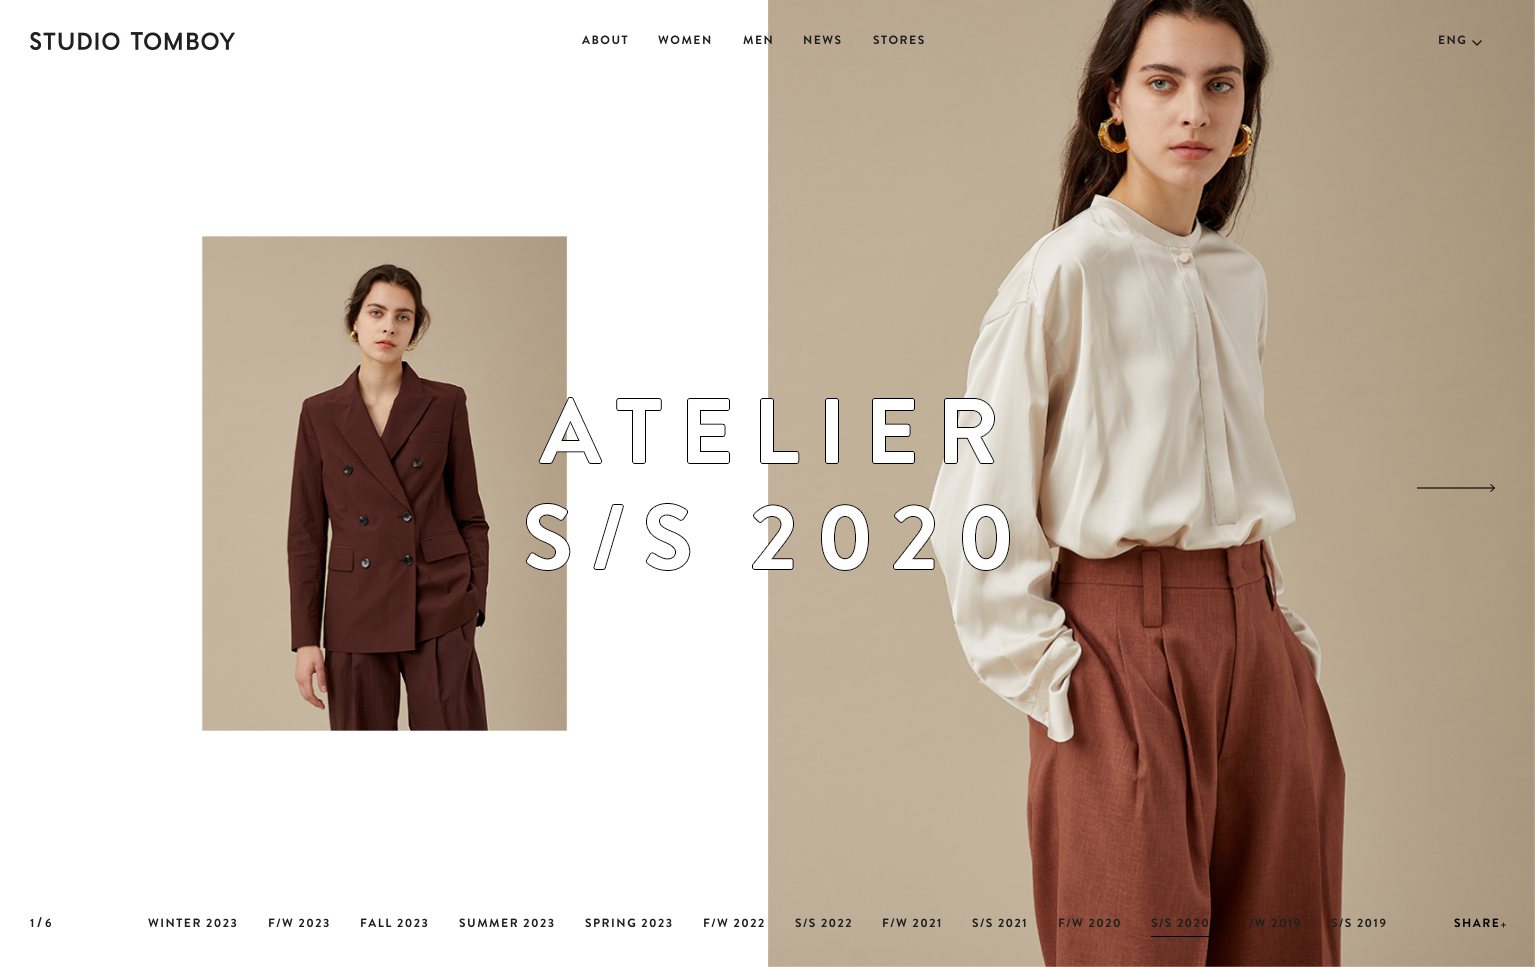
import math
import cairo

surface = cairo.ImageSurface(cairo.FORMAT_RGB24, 1535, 967)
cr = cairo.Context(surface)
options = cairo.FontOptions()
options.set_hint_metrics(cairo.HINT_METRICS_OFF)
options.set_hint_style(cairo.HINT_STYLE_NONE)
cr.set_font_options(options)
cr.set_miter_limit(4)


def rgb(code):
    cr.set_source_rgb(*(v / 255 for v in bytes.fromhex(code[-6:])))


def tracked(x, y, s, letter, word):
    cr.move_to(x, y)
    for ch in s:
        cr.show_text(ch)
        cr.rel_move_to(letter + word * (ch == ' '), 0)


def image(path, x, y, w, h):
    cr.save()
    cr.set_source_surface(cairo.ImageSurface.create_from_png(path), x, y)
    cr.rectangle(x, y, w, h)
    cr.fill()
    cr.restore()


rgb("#ffffff")
cr.paint()
image("img/1.png", 201, 236, 367, 495)
image("img/2.png", 768, 0, 767, 967)
image("img/3.png", 1417, 484, 78, 8)
image("img/4.png", 525, 397, 485, 174)
image("img/5.png", 30, 32, 205, 18)
image("img/6.png", 1472, 40, 10, 6)
rgb("#000000")
cr.rectangle(1151, 936, 60, 1)
cr.fill()
image("img/7.png", 1501, 922, 5, 6)
cr.select_font_face("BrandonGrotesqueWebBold")
cr.set_font_size(12)
rgb("#1e1e1e")
for x, y, s in [
    (582, 44, "ABOUT"),
    (658, 44, "WOMEN"),
    (743, 44, "MEN"),
    (803, 44, "NEWS"),
    (873, 44, "STORES"),
    (1438, 44, "ENG"),
]:
    tracked(x, y, s, 1.5, 0)
cr.move_to(30, 927)
cr.show_text("1")
cr.set_font_size(14)
cr.move_to(37, 927)
cr.show_text("/")
cr.set_font_size(12)
cr.move_to(45, 927)
cr.show_text("6")
for x, y, s in [
    (148, 927, "WINTER 2023"),
    (268, 927, "F/W 2023"),
    (360, 927, "FALL 2023"),
    (459, 927, "SUMMER 2023"),
    (585, 927, "SPRING 2023"),
    (703, 927, "F/W 2022"),
    (795, 927, "S/S 2022"),
    (882, 927, "F/W 2021"),
    (972, 927, "S/S 2021"),
    (1058, 927, "F/W 2020"),
    (1151, 927, "S/S 2020"),
    (1249, 927, "/W 2019"),
    (1331, 927, "S/S 2019"),
]:
    tracked(x, y, s, 1.5, 0)
rgb("#000000")
tracked(1454, 927, "SHARE", 1.5, 0)
surface.write_to_png("page.png")
